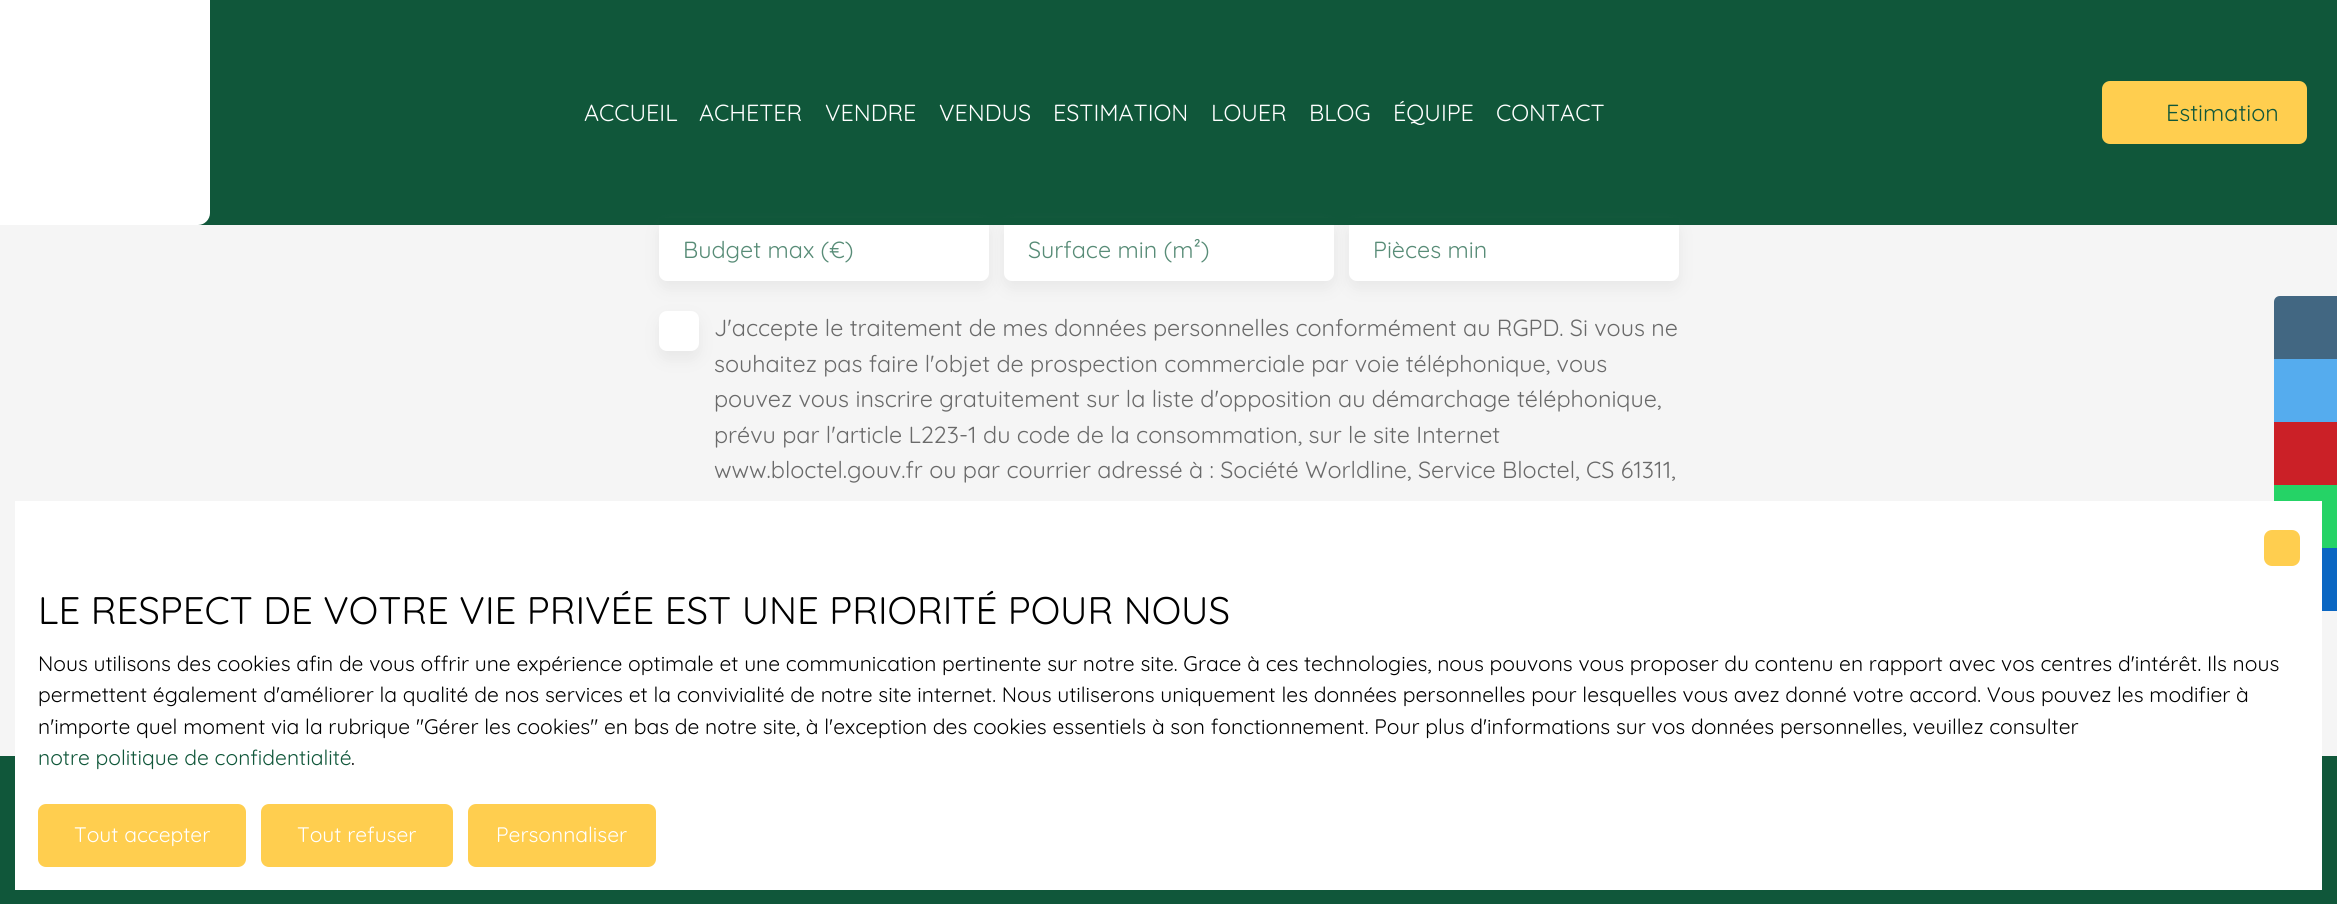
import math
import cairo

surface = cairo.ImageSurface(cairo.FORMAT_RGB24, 2337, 904)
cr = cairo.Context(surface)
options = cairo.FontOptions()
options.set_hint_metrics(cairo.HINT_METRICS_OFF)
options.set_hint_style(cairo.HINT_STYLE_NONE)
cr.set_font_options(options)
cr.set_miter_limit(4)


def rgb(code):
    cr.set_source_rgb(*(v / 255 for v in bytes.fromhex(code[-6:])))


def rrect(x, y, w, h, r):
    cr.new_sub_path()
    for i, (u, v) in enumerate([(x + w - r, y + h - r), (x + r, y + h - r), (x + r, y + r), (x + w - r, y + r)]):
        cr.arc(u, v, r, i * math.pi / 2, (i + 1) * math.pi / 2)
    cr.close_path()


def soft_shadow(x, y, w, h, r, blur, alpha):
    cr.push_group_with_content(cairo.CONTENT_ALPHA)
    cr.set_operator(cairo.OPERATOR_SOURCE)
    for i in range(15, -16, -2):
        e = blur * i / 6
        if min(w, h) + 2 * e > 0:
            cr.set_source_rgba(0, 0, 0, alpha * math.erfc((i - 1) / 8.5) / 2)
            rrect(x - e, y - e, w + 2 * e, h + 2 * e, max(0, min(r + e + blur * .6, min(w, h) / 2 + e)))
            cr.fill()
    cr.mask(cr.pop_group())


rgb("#10573a")
cr.paint()
rgb("#f5f5f5")
cr.rectangle(0, 225, 2337, 531)
cr.fill()
rgb("#6b6b6b")
soft_shadow(659, 225, 330, 63, 8, 7.5, 0.1)
rgb("#ffffff")
rrect(660, 219, 328, 61, 7)
cr.fill_preserve()
cr.stroke()
rgb("#6b6b6b")
soft_shadow(1004, 225, 330, 63, 8, 7.5, 0.1)
rgb("#ffffff")
rrect(1005, 219, 328, 61, 7)
cr.fill_preserve()
cr.stroke()
rgb("#6b6b6b")
soft_shadow(1349, 225, 330, 63, 8, 7.5, 0.1)
rgb("#ffffff")
rrect(1350, 219, 328, 61, 7)
cr.fill_preserve()
cr.stroke()
rgb("#10573a")
cr.rectangle(659, 218, 1020, 7)
cr.fill()
rgb("#ffffff")
cr.new_path()
cr.move_to(0, 0)
cr.line_to(210, 0)
cr.line_to(210, 213)
cr.curve_to(210, 219.5, 204.5, 225, 198, 225)
cr.line_to(0, 225)
cr.close_path()
cr.fill()
rgb("#ffce4f")
rrect(2103.5, 82.5, 202, 60, 6.5)
cr.fill_preserve()
cr.set_line_width(3)
cr.stroke()
rgb("#6b6b6b")
soft_shadow(659, 318, 40, 41, 8, 7.5, 0.1)
rgb("#ffffff")
rrect(660, 312, 38, 38, 7)
cr.fill_preserve()
cr.set_line_width(2)
cr.stroke()
rgb("#426782")
cr.new_path()
cr.move_to(2280, 296)
cr.line_to(2337, 296)
cr.line_to(2337, 359)
cr.line_to(2274, 359)
cr.line_to(2274, 302)
cr.curve_to(2274, 298.5, 2276.5, 296, 2280, 296)
cr.close_path()
cr.fill()
for x, y, w, h, color in [
    (2274, 359, 63, 63, "#55acee"),
    (2274, 422, 63, 63, "#cb2027"),
    (2274, 485, 63, 63, "#25d366"),
    (2322, 548, 15, 63, "#0a66c2"),
    (15, 501, 2307, 389, "#ffffff"),
]:
    rgb(color)
    cr.rectangle(x, y, w, h)
    cr.fill()
rgb("#ffce4f")
rrect(2265.5, 531.5, 33, 33, 6.5)
cr.fill_preserve()
cr.set_line_width(3)
cr.stroke()
rrect(39.5, 805.5, 205, 60, 6.5)
cr.fill_preserve()
cr.stroke()
rrect(262.5, 805.5, 189, 60, 6.5)
cr.fill_preserve()
cr.stroke()
rrect(469.5, 805.5, 185, 60, 6.5)
cr.fill_preserve()
cr.stroke()
cr.select_font_face("Quicksand")
cr.set_font_size(23.3)
rgb("#ffffff")
for x, y, s in [
    (584, 121, "ACCUEIL"),
    (699, 121, "ACHETER"),
    (825, 121, "VENDRE"),
    (939, 121, "VENDUS"),
    (1053, 121, "ESTIMATION"),
    (1211, 121, "LOUER"),
    (1309, 121, "BLOG"),
    (1393, 121, "ÉQUIPE"),
    (1496, 121, "CONTACT"),
]:
    cr.move_to(x, y)
    cr.show_text(s)
rgb("#10573a")
cr.move_to(2166, 121)
cr.show_text("Estimation")
rgb("#588c77")
for x, y, s in [
    (683, 258, "Budget max (€)"),
    (1028, 258, "Surface min (m²)"),
    (1373, 258, "Pièces min"),
]:
    cr.move_to(x, y)
    cr.show_text(s)
rgb("#6a6a6a")
for x, y, s in [
    (714, 336, "J'accepte le traitement de mes données personnelles conformément au RGPD. Si vous ne"),
    (714, 372, "souhaitez pas faire l'objet de prospection commerciale par voie téléphonique, vous"),
    (714, 407, "pouvez vous inscrire gratuitement sur la liste d'opposition au démarchage téléphonique,"),
    (714, 443, "prévu par l'article L223-1 du code de la consommation, sur le site Internet"),
    (714, 478, "www.bloctel.gouv.fr ou par courrier adressé à : Société Worldline, Service Bloctel, CS 61311,"),
]:
    cr.move_to(x, y)
    cr.show_text(s)
cr.set_font_size(38.4)
rgb("#000000")
cr.move_to(38, 624)
cr.show_text("LE RESPECT DE VOTRE VIE PRIVÉE EST UNE PRIORITÉ POUR NOUS")
cr.set_font_size(21)
for x, y, s in [
    (38, 671, "Nous utilisons des cookies afin de vous offrir une expérience optimale et une communication pertinente sur notre site. Grace à ces technologies, nous pouvons vous proposer du contenu en rapport avec vos centres d'intérêt. Ils nous"),
    (38, 702, "permettent également d'améliorer la qualité de nos services et la convivialité de notre site internet. Nous utiliserons uniquement les données personnelles pour lesquelles vous avez donné votre accord. Vous pouvez les modifier à"),
    (38, 734, "n'importe quel moment via la rubrique ″Gérer les cookies″ en bas de notre site, à l'exception des cookies essentiels à son fonctionnement. Pour plus d'informations sur vos données personnelles, veuillez consulter"),
]:
    cr.move_to(x, y)
    cr.show_text(s)
rgb("#10573a")
cr.move_to(38, 765)
cr.show_text("notre politique de confidentialité")
rgb("#000000")
cr.move_to(351, 765)
cr.show_text(".")
rgb("#ffffff")
for x, y, s in [
    (74, 842, "Tout accepter"),
    (297, 842, "Tout refuser"),
    (496, 842, "Personnaliser"),
]:
    cr.move_to(x, y)
    cr.show_text(s)
surface.write_to_png("page.png")
